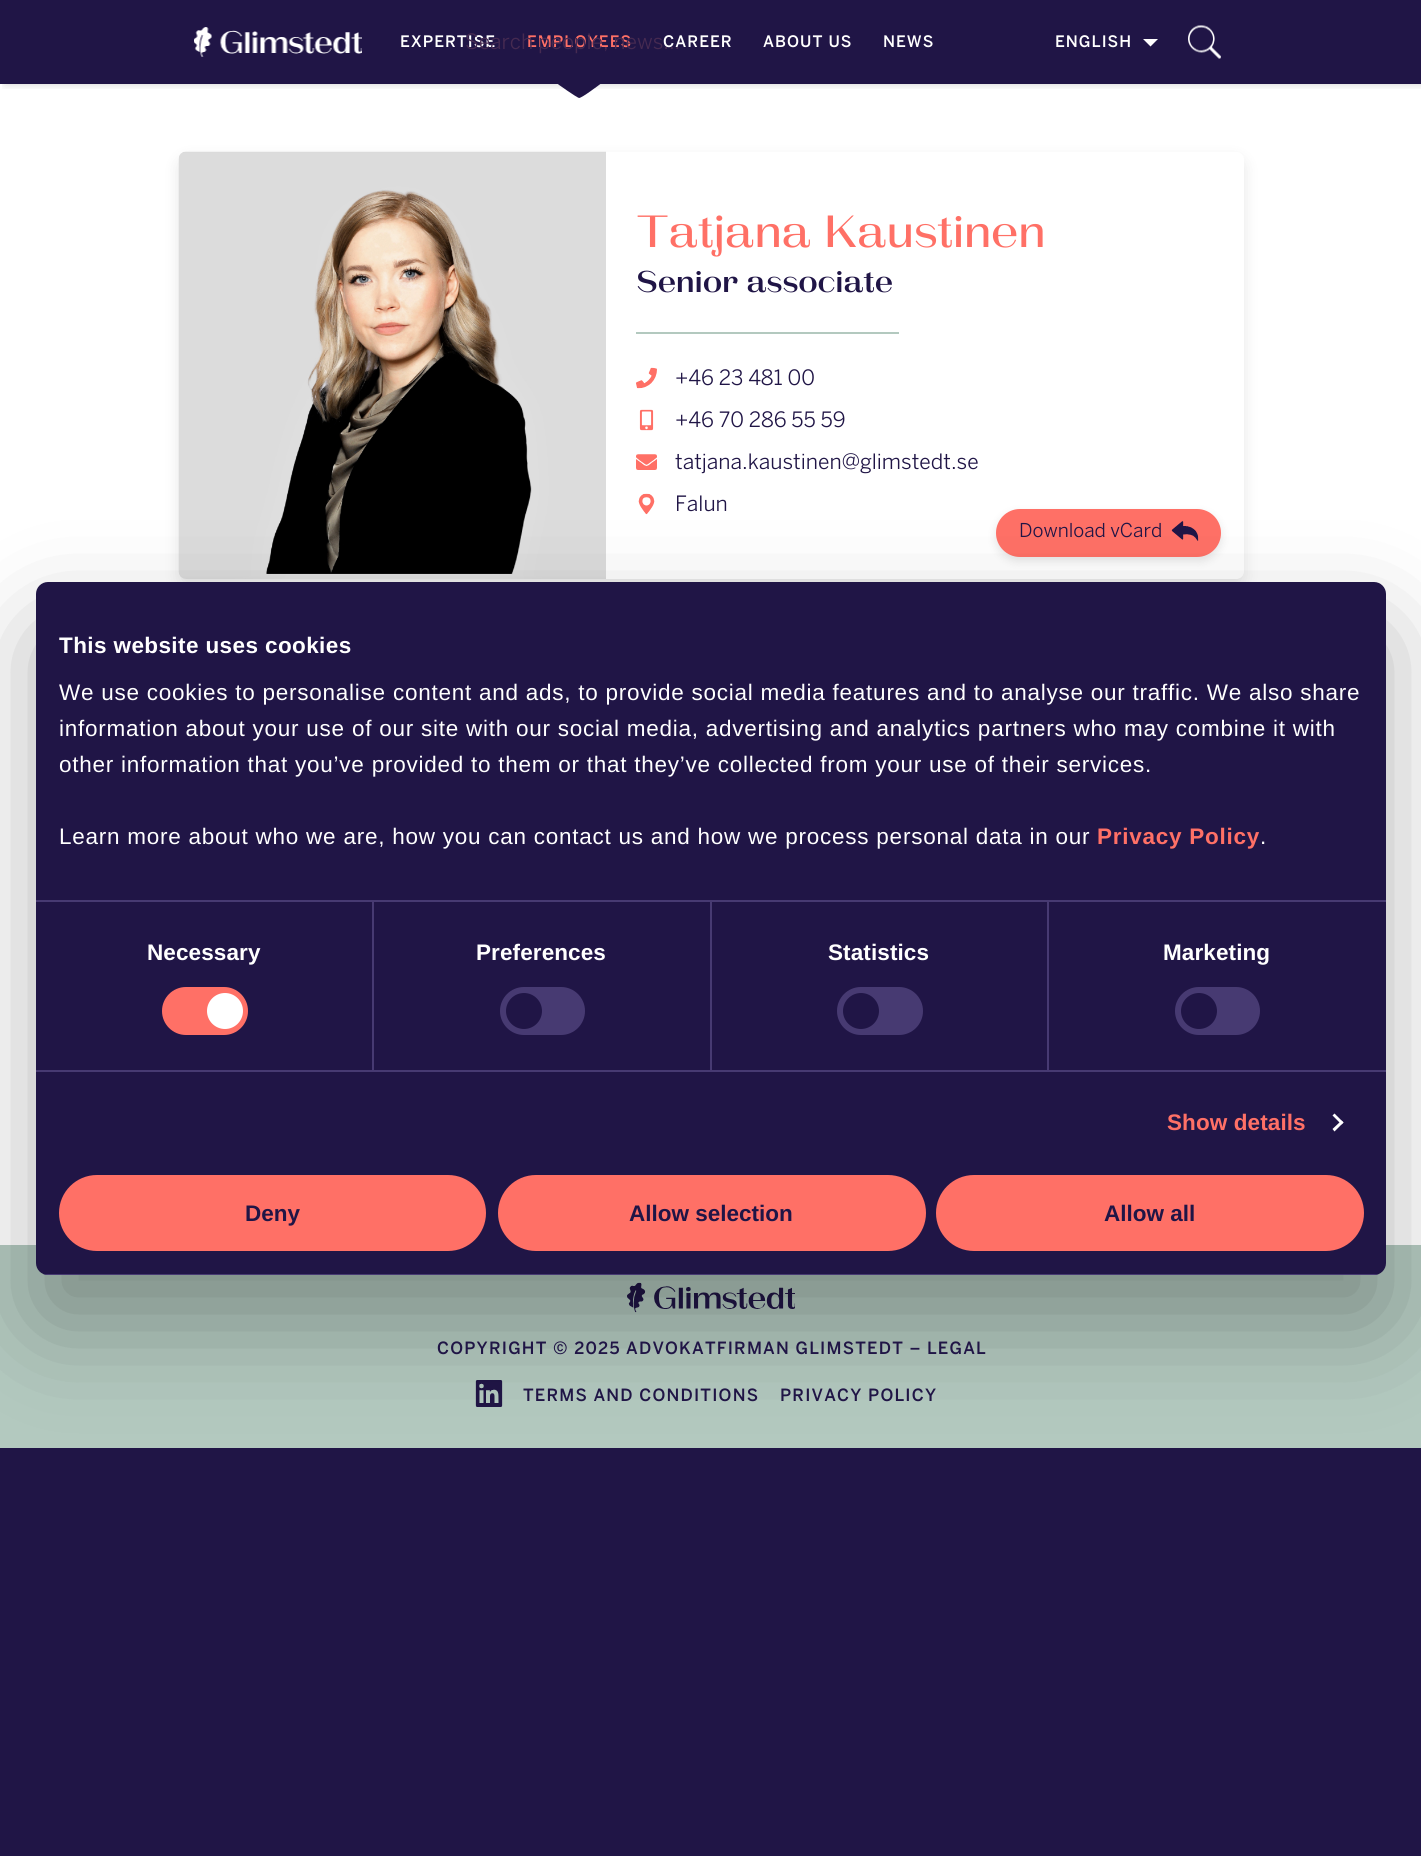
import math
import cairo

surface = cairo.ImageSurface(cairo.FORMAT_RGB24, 1421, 1856)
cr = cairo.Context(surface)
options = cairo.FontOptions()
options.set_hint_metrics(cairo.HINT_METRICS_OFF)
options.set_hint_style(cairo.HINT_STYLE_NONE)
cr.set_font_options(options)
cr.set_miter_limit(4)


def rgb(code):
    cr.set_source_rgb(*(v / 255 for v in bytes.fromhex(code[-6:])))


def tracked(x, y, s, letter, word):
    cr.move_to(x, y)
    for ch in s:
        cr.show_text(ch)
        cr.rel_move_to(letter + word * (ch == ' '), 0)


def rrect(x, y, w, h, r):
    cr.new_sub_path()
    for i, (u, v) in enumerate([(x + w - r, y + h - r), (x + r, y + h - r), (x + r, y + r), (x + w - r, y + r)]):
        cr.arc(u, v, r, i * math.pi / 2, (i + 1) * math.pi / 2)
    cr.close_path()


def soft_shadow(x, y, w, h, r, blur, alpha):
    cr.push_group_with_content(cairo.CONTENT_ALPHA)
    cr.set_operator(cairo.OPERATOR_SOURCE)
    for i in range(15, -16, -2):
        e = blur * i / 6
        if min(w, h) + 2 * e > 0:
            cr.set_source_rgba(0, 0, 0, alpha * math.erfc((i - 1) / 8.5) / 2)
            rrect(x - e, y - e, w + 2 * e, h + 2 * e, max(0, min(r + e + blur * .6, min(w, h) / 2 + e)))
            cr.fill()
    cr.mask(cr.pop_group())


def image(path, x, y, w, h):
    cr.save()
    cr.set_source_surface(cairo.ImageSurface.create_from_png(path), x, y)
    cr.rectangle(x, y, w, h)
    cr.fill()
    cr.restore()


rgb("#201546")
cr.paint()
rgb("#ffffff")
cr.rectangle(0, 84, 1421, 1161)
cr.fill()
cr.save()
cr.rectangle(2, 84, 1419, 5)
cr.clip()
rgb("#000000")
soft_shadow(5, 0, 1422, 84, 0, 4.5, 0.18)
cr.restore()
image("img/1.png", 194, 27, 168, 30)
image("img/2.png", 1188, 25, 33, 34)
cr.save()
cr.rectangle(552, 83, 54, 15)
cr.clip()
rgb("#201546")
cr.new_path()
cr.move_to(579, 98)
cr.curve_to(576, 97, 559, 85, 555, 82)
cr.line_to(603, 82)
cr.curve_to(599, 85, 582, 98, 579, 98)
cr.close_path()
cr.fill()
cr.restore()
cr.new_path()
cr.move_to(1143, 39)
cr.line_to(1158, 39)
cr.line_to(1150.5, 46.5)
cr.close_path()
cr.fill()
cr.save()
cr.set_fill_rule(cairo.FILL_RULE_EVEN_ODD)
cr.new_path()
cr.move_to(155, 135)
cr.line_to(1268, 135)
cr.line_to(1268, 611)
cr.line_to(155, 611)
cr.close_path()
cr.move_to(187, 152)
cr.line_to(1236, 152)
cr.curve_to(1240.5, 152, 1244, 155.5, 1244, 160)
cr.line_to(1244, 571)
cr.curve_to(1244, 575.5, 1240.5, 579, 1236, 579)
cr.line_to(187, 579)
cr.curve_to(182.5, 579, 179, 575.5, 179, 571)
cr.line_to(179, 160)
cr.curve_to(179, 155.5, 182.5, 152, 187, 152)
cr.close_path()
cr.clip()
rgb("#000000")
soft_shadow(179, 159, 1065, 428, 8, 7.5, 0.1)
cr.restore()
image("img/3.png", 178, 151, 428, 428)
rgb("#b3c9bf")
cr.rectangle(636, 332, 263, 2)
cr.fill()
image("img/4.png", 636, 367, 21, 22)
image("img/5.png", 639, 409, 15, 22)
image("img/6.png", 636, 454, 21, 16)
image("img/7.png", 638, 493, 17, 22)
rgb("#000000")
soft_shadow(996, 513, 225, 48, 24, 4.5, 0.1)
rgb("#ff7066")
rrect(996, 509, 225, 48, 24)
cr.fill()
image("img/8.png", 1171, 521, 28, 20)
rgb("#b3c9bf")
cr.rectangle(0, 1245, 1421, 203)
cr.fill()
image("img/9.png", 627, 1282, 168, 31)
image("img/10.png", 475, 1380, 28, 27)
rgb("#000000")
soft_shadow(36, 630, 1350, 693, 12, 51, 0.3)
rgb("#201546")
rrect(36, 582, 1350, 693, 12)
cr.fill()
for x, y, w, h, color in [
    (36, 900, 1350, 2, "#473a72"),
    (36, 1070, 1350, 2, "#473a72"),
    (372, 902, 2, 168, "#473a72"),
]:
    rgb(color)
    cr.rectangle(x, y, w, h)
    cr.fill()
rgb("#ff7066")
rrect(162, 987, 86, 48, 24)
cr.fill()
rgb("#ffffff")
cr.arc(225, 1011, 18, 0, 2 * math.pi)
cr.fill()
rgb("#473a72")
cr.rectangle(710, 902, 2, 168)
cr.fill()
rrect(500, 987, 85, 48, 24)
cr.fill()
rgb("#201546")
cr.arc(524, 1011, 18, 0, 2 * math.pi)
cr.fill()
rgb("#473a72")
cr.rectangle(1047, 902, 2, 168)
cr.fill()
rrect(837, 987, 86, 48, 24)
cr.fill()
rgb("#201546")
cr.arc(861, 1011, 18, 0, 2 * math.pi)
cr.fill()
rgb("#473a72")
rrect(1175, 987, 85, 48, 24)
cr.fill()
rgb("#201546")
cr.arc(1199, 1011, 18, 0, 2 * math.pi)
cr.fill()
rgb("#ffffff")
cr.new_path()
cr.move_to(1334.5, 1113.5)
cr.line_to(1343.5, 1122.5)
cr.line_to(1341.5, 1124.5)
cr.line_to(1332.5, 1115.5)
cr.close_path()
cr.fill()
cr.new_path()
cr.move_to(1341.5, 1120.5)
cr.line_to(1343.5, 1122.5)
cr.line_to(1334.5, 1131.5)
cr.line_to(1332.5, 1129)
cr.close_path()
cr.fill()
cr.save()
rrect(36, 582, 1350, 693, 12)
cr.clip()
rgb("#473a72")
cr.rectangle(36, 1274, 1350, 1)
cr.fill()
cr.restore()
rgb("#ff7066")
rrect(60.5, 1176.5, 424, 73, 36.5)
cr.fill_preserve()
cr.set_line_width(3)
cr.stroke()
rrect(499.5, 1176.5, 425, 73, 36.5)
cr.fill_preserve()
cr.stroke()
rrect(937.5, 1176.5, 425, 73, 36.5)
cr.fill_preserve()
cr.stroke()
cr.select_font_face("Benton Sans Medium")
cr.set_font_size(15.75)
rgb("#ffffff")
tracked(400, 47, "EXPERTISE", 1, 0)
rgb("#ff7066")
tracked(527, 47, "EMPLOYEES", 1, 0)
rgb("#ffffff")
tracked(663, 47, "CAREER", 1, 0)
cr.select_font_face("Benton Sans")
cr.set_font_size(21)
rgb("#462a51")
cr.move_to(465, 49)
cr.show_text("Search people, news...")
cr.select_font_face("Benton Sans Medium")
cr.set_font_size(15.75)
rgb("#ffffff")
for x, y, s in [
    (763, 47, "ABOUT US"),
    (883, 47, "NEWS"),
    (1055, 47, "ENGLISH"),
]:
    tracked(x, y, s, 1, 0)
cr.select_font_face("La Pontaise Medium")
cr.set_font_size(45)
rgb("#ff7066")
tracked(636, 247, "Tatjana Kaustinen", -0.9, 0)
cr.select_font_face("La Pontaise SemiBold")
cr.set_font_size(30)
rgb("#201546")
tracked(636, 292, "Senior associate", -0.6, 0)
cr.select_font_face("Benton Sans")
cr.set_font_size(21)
for x, y, s in [
    (675, 385, "+46 23 481 00"),
    (675, 427, "+46 70 286 55 59"),
    (675, 469, "tatjana.kaustinen@glimstedt.se"),
    (675, 511, "Falun"),
]:
    cr.move_to(x, y)
    cr.show_text(s)
cr.set_font_size(19)
cr.move_to(1019, 537)
cr.show_text("Download vCard")
cr.select_font_face("Liberation Sans", cairo.FONT_SLANT_NORMAL, cairo.FONT_WEIGHT_BOLD)
cr.set_font_size(22.5)
rgb("#ffffff")
tracked(59, 653, "This website uses cookies", 0.4, 0)
cr.select_font_face("Liberation Sans")
for x, y, s in [
    (59, 700, "We use cookies to personalise content and ads, to provide social media features and to analyse our traffic. We also share"),
    (59, 736, "information about your use of our site with our social media, advertising and analytics partners who may combine it with"),
    (59, 772, "other information that you’ve provided to them or that they’ve collected from your use of their services."),
    (59, 844, "Learn more about who we are, how you can contact us and how we process personal data in our"),
]:
    tracked(x, y, s, 0.75, 0)
cr.select_font_face("Liberation Sans", cairo.FONT_SLANT_NORMAL, cairo.FONT_WEIGHT_BOLD)
rgb("#ff7066")
tracked(1097, 844, "Privacy Policy", 0.75, 0)
cr.select_font_face("Liberation Sans")
rgb("#ffffff")
tracked(1260, 844, ".", 0.75, 0)
cr.select_font_face("Liberation Sans", cairo.FONT_SLANT_NORMAL, cairo.FONT_WEIGHT_BOLD)
for x, y, s in [
    (147, 960, "Necessary"),
    (476, 960, "Preferences"),
    (828, 960, "Statistics"),
    (1163, 960, "Marketing"),
]:
    tracked(x, y, s, 0.1, 0)
rgb("#ff7066")
tracked(1167, 1130, "Show details", 0.1, 0)
rgb("#201546")
for x, y, s in [
    (245, 1221, "Deny"),
    (629, 1221, "Allow selection"),
    (1104, 1221, "Allow all"),
]:
    cr.move_to(x, y)
    cr.show_text(s)
cr.select_font_face("Benton Sans Medium")
cr.set_font_size(16.8)
for x, y, s in [
    (437, 1354, "COPYRIGHT © 2025 ADVOKATFIRMAN GLIMSTEDT – LEGAL"),
    (523, 1401, "TERMS AND CONDITIONS"),
    (780, 1401, "PRIVACY POLICY"),
]:
    tracked(x, y, s, 1.2, 0)
surface.write_to_png("page.png")
